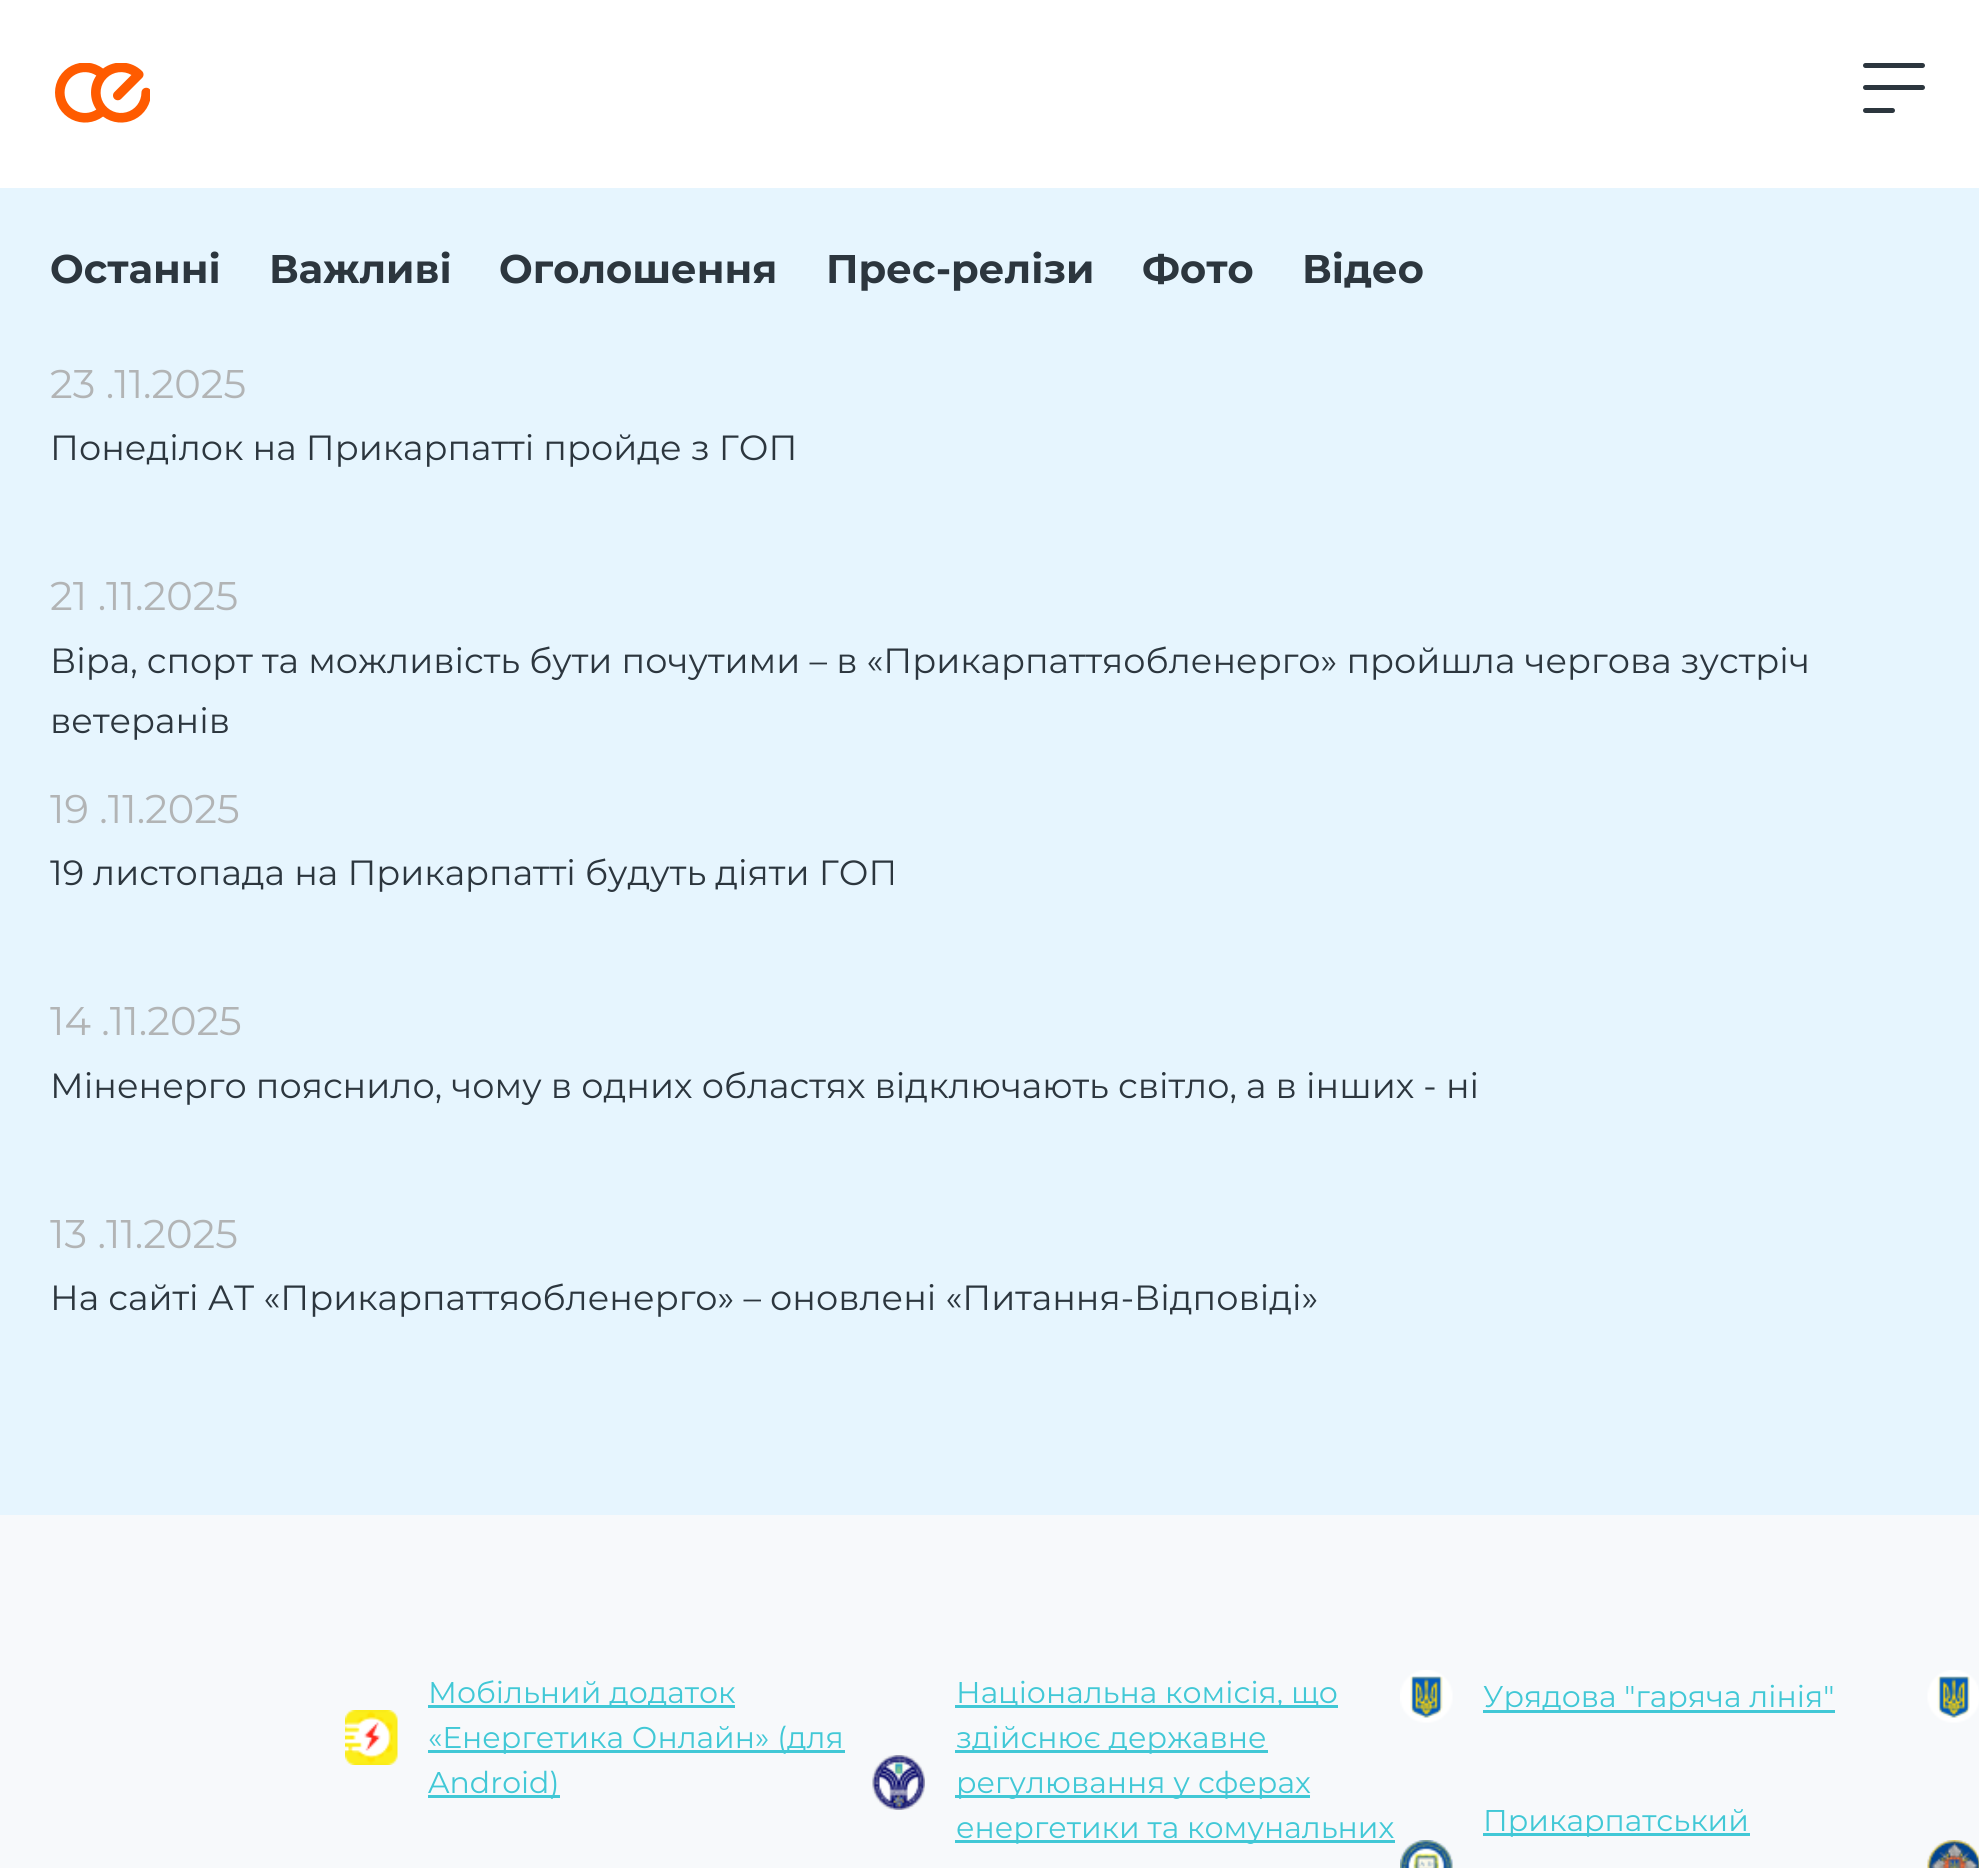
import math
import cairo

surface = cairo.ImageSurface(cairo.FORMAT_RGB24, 1979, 1868)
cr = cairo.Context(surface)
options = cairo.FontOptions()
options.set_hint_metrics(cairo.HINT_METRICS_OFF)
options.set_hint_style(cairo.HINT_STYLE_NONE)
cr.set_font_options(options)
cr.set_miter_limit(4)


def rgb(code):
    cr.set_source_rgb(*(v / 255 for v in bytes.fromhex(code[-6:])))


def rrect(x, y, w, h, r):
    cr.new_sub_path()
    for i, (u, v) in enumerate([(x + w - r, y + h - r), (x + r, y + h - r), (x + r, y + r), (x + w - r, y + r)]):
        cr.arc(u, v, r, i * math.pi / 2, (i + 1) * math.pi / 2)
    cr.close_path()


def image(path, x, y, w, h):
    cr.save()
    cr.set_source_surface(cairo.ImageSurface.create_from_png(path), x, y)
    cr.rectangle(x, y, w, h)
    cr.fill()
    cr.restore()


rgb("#e6f5fe")
cr.paint()
rgb("#ffffff")
cr.rectangle(0, 0, 1979, 188)
cr.fill()
image("img/1.png", 55, 63, 95, 60)
rgb("#2c363e")
rrect(1863, 63, 62, 5, 2.5)
cr.fill()
rrect(1863, 85, 62, 5, 2.5)
cr.fill()
rrect(1863, 108, 32, 5, 2.5)
cr.fill()
rgb("#f7f9fb")
cr.rectangle(0, 1515, 1979, 353)
cr.fill()
image("img/2.png", 345, 1710, 53, 55)
for x, y, w, h, color in [
    (428, 1705, 307, 3, "#41c8d6"),
    (428, 1750, 417, 3, "#41c8d6"),
    (428, 1795, 132, 3, "#41c8d6"),
]:
    rgb(color)
    cr.rectangle(x, y, w, h)
    cr.fill()
image("img/3.png", 872, 1755, 53, 55)
for x, y, w, h, color in [
    (955, 1705, 383, 3, "#41c8d6"),
    (955, 1750, 313, 3, "#41c8d6"),
    (955, 1795, 355, 3, "#41c8d6"),
    (955, 1840, 440, 3, "#41c8d6"),
]:
    rgb(color)
    cr.rectangle(x, y, w, h)
    cr.fill()
image("img/4.png", 1400, 1670, 53, 53)
cr.rectangle(1483, 1710, 352, 3)
cr.fill()
cr.rectangle(1483, 1833, 267, 3)
cr.fill()
image("img/5.png", 1400, 1840, 53, 28)
image("img/6.png", 1927, 1670, 52, 53)
image("img/7.png", 1927, 1840, 52, 28)
cr.select_font_face("Montserrat", cairo.FONT_SLANT_NORMAL, cairo.FONT_WEIGHT_BOLD)
cr.set_font_size(40)
rgb("#2c363e")
for x, y, s in [
    (50, 283, "Останні"),
    (269, 283, "Важливі"),
    (499, 283, "Оголошення"),
    (826, 283, "Прес-релізи"),
    (1142, 283, "Фото"),
    (1302, 283, "Відео"),
]:
    cr.move_to(x, y)
    cr.show_text(s)
cr.select_font_face("Montserrat")
rgb("#b2b4b5")
cr.move_to(50, 398)
cr.show_text("23 .11.2025")
cr.set_font_size(35)
rgb("#2c363e")
cr.move_to(50, 460)
cr.show_text("Понеділок на Прикарпатті пройде з ГОП")
cr.set_font_size(40)
rgb("#b2b4b5")
cr.move_to(50, 610)
cr.show_text("21 .11.2025")
cr.set_font_size(35)
rgb("#2c363e")
cr.move_to(50, 673)
cr.show_text("Віра, спорт та можливість бути почутими – в «Прикарпаттяобленерго» пройшла чергова зустріч")
cr.move_to(50, 733)
cr.show_text("ветеранів")
cr.set_font_size(40)
rgb("#b2b4b5")
cr.move_to(50, 823)
cr.show_text("19 .11.2025")
cr.set_font_size(35)
rgb("#2c363e")
cr.move_to(50, 885)
cr.show_text("19 листопада на Прикарпатті будуть діяти ГОП")
cr.set_font_size(40)
rgb("#b2b4b5")
cr.move_to(50, 1035)
cr.show_text("14 .11.2025")
cr.set_font_size(35)
rgb("#2c363e")
cr.move_to(50, 1098)
cr.show_text("Міненерго пояснило, чому в одних областях відключають світло, а в інших - ні")
cr.set_font_size(40)
rgb("#b2b4b5")
cr.move_to(50, 1248)
cr.show_text("13 .11.2025")
cr.set_font_size(35)
rgb("#2c363e")
cr.move_to(50, 1310)
cr.show_text("На сайті АТ «Прикарпаттяобленерго» – оновлені «Питання-Відповіді»")
cr.set_font_size(30)
rgb("#41c8d6")
for x, y, s in [
    (428, 1703, "Мобільний додаток"),
    (428, 1748, "«Енергетика Онлайн» (для"),
    (428, 1793, "Android)"),
    (956, 1703, "Національна комісія, що"),
    (956, 1748, "здійснює державне"),
    (956, 1793, "регулювання у сферах"),
    (956, 1838, "енергетики та комунальних"),
    (1483, 1707, "Урядова \"гаряча лінія\""),
    (1483, 1831, "Прикарпатський"),
]:
    cr.move_to(x, y)
    cr.show_text(s)
surface.write_to_png("page.png")
